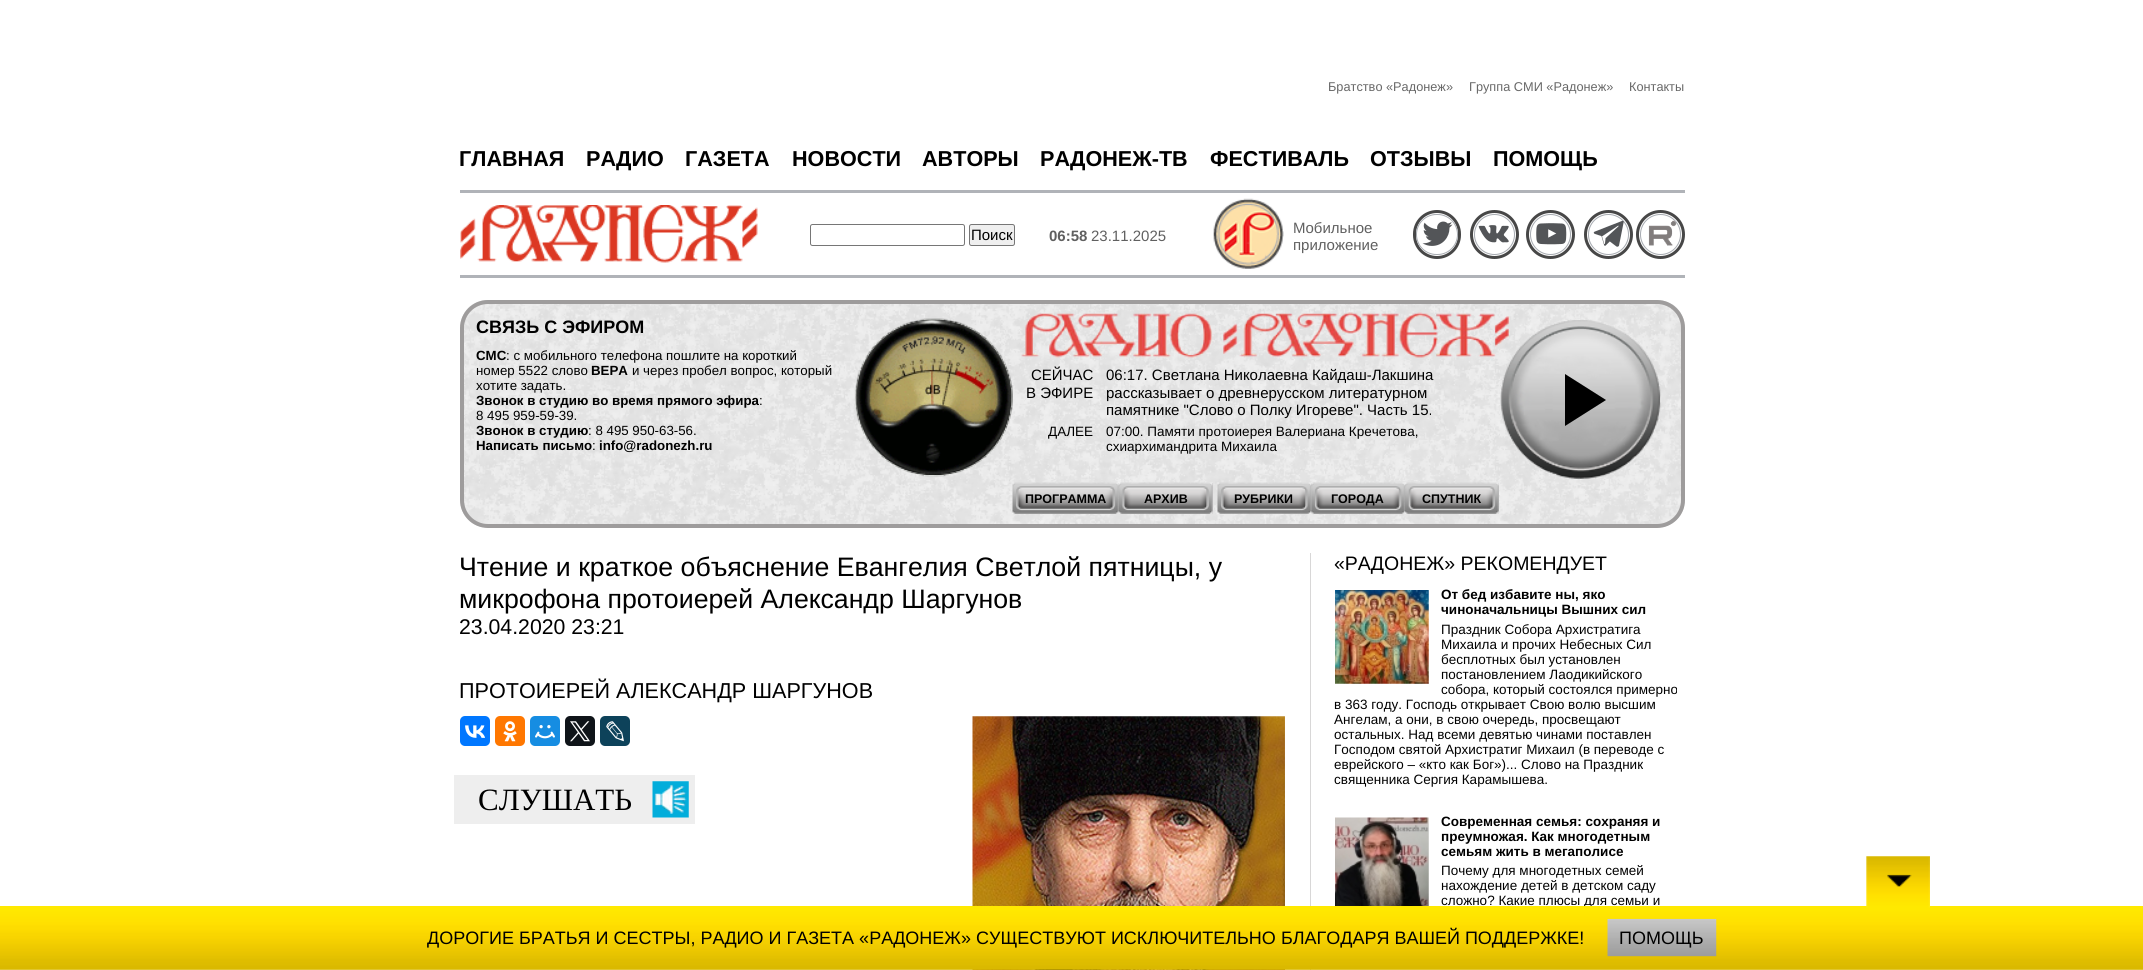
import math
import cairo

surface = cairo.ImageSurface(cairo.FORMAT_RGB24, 2143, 970)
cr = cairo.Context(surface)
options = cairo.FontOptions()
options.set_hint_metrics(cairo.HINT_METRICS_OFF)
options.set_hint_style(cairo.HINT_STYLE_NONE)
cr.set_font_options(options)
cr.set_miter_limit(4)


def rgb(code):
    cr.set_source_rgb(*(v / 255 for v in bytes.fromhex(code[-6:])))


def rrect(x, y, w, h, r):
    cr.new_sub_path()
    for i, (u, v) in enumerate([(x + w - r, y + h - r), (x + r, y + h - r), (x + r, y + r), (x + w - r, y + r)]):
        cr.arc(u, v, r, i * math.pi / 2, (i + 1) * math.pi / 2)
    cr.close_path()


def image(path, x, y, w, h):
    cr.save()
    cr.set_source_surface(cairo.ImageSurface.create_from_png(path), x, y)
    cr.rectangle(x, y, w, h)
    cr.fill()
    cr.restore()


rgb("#ffffff")
cr.paint()
image("img/1.png", 460, 205, 298, 58)
rgb("#b0b3b8")
cr.rectangle(460, 190, 1225, 3)
cr.fill()
cr.rectangle(460, 275, 1225, 3)
cr.fill()
rrect(810.5, 224.5, 154, 21, 2)
rgb("#767676")
cr.set_line_width(1)
cr.stroke()
rgb("#efefef")
rrect(969.5, 224.5, 45, 21, 2)
cr.fill_preserve()
rgb("#767676")
cr.stroke()
image("img/2.png", 1213, 198, 71, 71)
rrect(1414.5, 211.5, 45, 46, 22.5)
rgb("#474747")
cr.set_line_width(3)
cr.stroke()
rrect(1416.5, 214.5, 41, 40, 20)
rgb("#a6aab0")
cr.set_line_width(1)
cr.stroke()
image("img/3.png", 1422, 221, 31, 25)
cr.arc(1494.5, 234.5, 23, 0, 2 * math.pi)
rgb("#474747")
cr.set_line_width(3)
cr.stroke()
cr.arc(1494.5, 234.5, 20, 0, 2 * math.pi)
rgb("#a6aab0")
cr.set_line_width(1)
cr.stroke()
image("img/4.png", 1478, 225, 31, 18)
cr.arc(1550.5, 234.5, 23, 0, 2 * math.pi)
rgb("#474747")
cr.set_line_width(3)
cr.stroke()
cr.arc(1550.5, 234.5, 20, 0, 2 * math.pi)
rgb("#a6aab0")
cr.set_line_width(1)
cr.stroke()
image("img/5.png", 1536, 223, 31, 22)
cr.arc(1608.5, 234.5, 23, 0, 2 * math.pi)
rgb("#474747")
cr.set_line_width(3)
cr.stroke()
cr.arc(1608.5, 234.5, 20, 0, 2 * math.pi)
rgb("#a6aab0")
cr.set_line_width(1)
cr.stroke()
image("img/6.png", 1593, 220, 31, 27)
cr.arc(1660.5, 234.5, 23, 0, 2 * math.pi)
rgb("#474747")
cr.set_line_width(3)
cr.stroke()
cr.arc(1660.5, 234.5, 20, 0, 2 * math.pi)
rgb("#a6aab0")
cr.set_line_width(1)
cr.stroke()
image("img/7.png", 1648, 220, 29, 26)
image("img/8.png", 460, 300, 1225, 227)
rrect(462, 302, 1221, 224, 26)
rgb("#9e9c9c")
cr.set_line_width(4)
cr.stroke()
image("img/9.png", 854, 312, 656, 165)
image("img/10.png", 855, 318, 158, 159)
image("img/11.png", 1500, 319, 162, 161)
rgb("#000000")
cr.new_path()
cr.move_to(1565, 374)
cr.line_to(1606, 400)
cr.line_to(1565, 426)
cr.close_path()
cr.fill()
rgb("#c7c5c6")
cr.rectangle(1013, 483, 200, 31)
cr.fill()
image("img/12.png", 1012, 482, 107, 32)
image("img/13.png", 1118, 482, 95, 32)
image("img/14.png", 1217, 482, 95, 32)
cr.rectangle(1311, 483, 188, 31)
cr.fill()
image("img/15.png", 1311, 482, 94, 32)
image("img/16.png", 1405, 482, 94, 32)
rgb("#d8d7d7")
cr.rectangle(1310, 553, 1, 417)
cr.fill()
rgb("#0077ff")
rrect(460, 716, 30, 30, 5)
cr.fill()
image("img/17.png", 465, 725, 20, 13)
rgb("#ff7700")
rrect(495, 716, 30, 30, 5)
cr.fill()
image("img/18.png", 503, 721, 14, 21)
rgb("#168de2")
rrect(530, 716, 30, 30, 5)
cr.fill()
image("img/19.png", 535, 725, 20, 14)
rgb("#0f1419")
rrect(565, 716, 30, 30, 5)
cr.fill()
image("img/20.png", 570, 721, 20, 21)
rgb("#0d425a")
rrect(600, 716, 30, 30, 5)
cr.fill()
image("img/21.png", 606, 721, 18, 21)
rgb("#eeeeee")
cr.rectangle(454, 775, 241, 49)
cr.fill()
image("img/22.png", 652, 781, 37, 37)
image("img/23.png", 972, 716, 313, 254)
image("img/24.png", 1335, 590, 94, 94)
image("img/25.png", 1335, 817, 94, 89)
cr.select_font_face("Liberation Sans")
cr.set_font_size(12.75)
rgb("#686868")
for x, y, s in [
    (1328, 91, "Братство «Радонеж»"),
    (1469, 91, "Группа СМИ «Радонеж»"),
    (1629, 91, "Контакты"),
]:
    cr.move_to(x, y)
    cr.show_text(s)
cr.select_font_face("Liberation Sans", cairo.FONT_SLANT_NORMAL, cairo.FONT_WEIGHT_BOLD)
cr.set_font_size(21.6)
rgb("#000000")
for x, y, s in [
    (459, 166, "ГЛАВНАЯ"),
    (586, 166, "РАДИО"),
    (685, 166, "ГАЗЕТА"),
    (792, 166, "НОВОСТИ"),
    (922, 166, "АВТОРЫ"),
    (1040, 166, "РАДОНЕЖ-ТВ"),
    (1210, 166, "ФЕСТИВАЛЬ"),
    (1370, 166, "ОТЗЫВЫ"),
    (1493, 166, "ПОМОЩЬ"),
]:
    cr.move_to(x, y)
    cr.show_text(s)
cr.select_font_face("Liberation Sans")
cr.set_font_size(15)
cr.move_to(971, 240)
cr.show_text("Поиск")
cr.select_font_face("Liberation Sans", cairo.FONT_SLANT_NORMAL, cairo.FONT_WEIGHT_BOLD)
rgb("#606060")
cr.move_to(1049, 241)
cr.show_text("06:58")
cr.select_font_face("Liberation Sans")
for x, y, s in [
    (1091, 241, "23.11.2025"),
    (1293, 233, "Мобильное"),
    (1293, 250, "приложение"),
]:
    cr.move_to(x, y)
    cr.show_text(s)
cr.select_font_face("Liberation Sans", cairo.FONT_SLANT_NORMAL, cairo.FONT_WEIGHT_BOLD)
cr.set_font_size(18)
rgb("#000000")
cr.move_to(476, 333)
cr.show_text("СВЯЗЬ С ЭФИРОМ")
cr.set_font_size(13.3)
cr.move_to(476, 360)
cr.show_text("СМС")
cr.select_font_face("Liberation Sans")
cr.move_to(506, 360)
cr.show_text(": с мобильного телефона пошлите на короткий")
cr.move_to(476, 375)
cr.show_text("номер 5522 слово")
cr.select_font_face("Liberation Sans", cairo.FONT_SLANT_NORMAL, cairo.FONT_WEIGHT_BOLD)
cr.move_to(591, 375)
cr.show_text("ВЕРА")
cr.select_font_face("Liberation Sans")
cr.move_to(632, 375)
cr.show_text("и через пробел вопрос, который")
cr.move_to(476, 390)
cr.show_text("хотите задать.")
cr.select_font_face("Liberation Sans", cairo.FONT_SLANT_NORMAL, cairo.FONT_WEIGHT_BOLD)
cr.move_to(476, 405)
cr.show_text("Звонок в студию во время прямого эфира")
cr.select_font_face("Liberation Sans")
cr.move_to(759, 405)
cr.show_text(":")
cr.move_to(476, 420)
cr.show_text("8 495 959-59-39.")
cr.select_font_face("Liberation Sans", cairo.FONT_SLANT_NORMAL, cairo.FONT_WEIGHT_BOLD)
cr.move_to(476, 435)
cr.show_text("Звонок в студию")
cr.select_font_face("Liberation Sans")
cr.move_to(588, 435)
cr.show_text(": 8 495 950-63-56.")
cr.select_font_face("Liberation Sans", cairo.FONT_SLANT_NORMAL, cairo.FONT_WEIGHT_BOLD)
cr.move_to(476, 450)
cr.show_text("Написать письмо")
cr.select_font_face("Liberation Sans")
cr.move_to(592, 450)
cr.show_text(":")
cr.select_font_face("Liberation Sans", cairo.FONT_SLANT_NORMAL, cairo.FONT_WEIGHT_BOLD)
cr.move_to(599, 450)
cr.show_text("info@radonezh.ru")
cr.select_font_face("Liberation Sans")
cr.set_font_size(15)
for x, y, s in [
    (1031, 380, "СЕЙЧАС"),
    (1026, 398, "В ЭФИРЕ"),
    (1106, 380, "06:17. Светлана Николаевна Кайдаш-Лакшина"),
    (1106, 398, "рассказывает о древнерусском литературном"),
    (1106, 415, "памятнике \"Слово о Полку Игореве\". Часть 15."),
]:
    cr.move_to(x, y)
    cr.show_text(s)
cr.set_font_size(13.5)
for x, y, s in [
    (1048, 436, "ДАЛЕЕ"),
    (1106, 436, "07:00. Памяти протоиерея Валериана Кречетова,"),
    (1106, 451, "схиархимандрита Михаила"),
]:
    cr.move_to(x, y)
    cr.show_text(s)
cr.select_font_face("Liberation Sans", cairo.FONT_SLANT_NORMAL, cairo.FONT_WEIGHT_BOLD)
cr.set_font_size(12.5)
for x, y, s in [
    (1025, 503, "ПРОГРАММА"),
    (1144, 503, "АРХИВ"),
    (1234, 503, "РУБРИКИ"),
    (1331, 503, "ГОРОДА"),
    (1422, 503, "СПУТНИК"),
]:
    cr.move_to(x, y)
    cr.show_text(s)
cr.select_font_face("Liberation Sans")
cr.set_font_size(26.7)
cr.move_to(459, 576)
cr.show_text("Чтение и краткое объяснение Евангелия Светлой пятницы, у")
cr.move_to(459, 608)
cr.show_text("микрофона протоиерей Александр Шаргунов")
cr.set_font_size(21.25)
cr.move_to(459, 634)
cr.show_text("23.04.2020 23:21")
cr.set_font_size(21.6)
cr.move_to(459, 698)
cr.show_text("ПРОТОИЕРЕЙ АЛЕКСАНДР ШАРГУНОВ")
cr.select_font_face("Liberation Serif")
cr.set_font_size(31)
cr.move_to(478, 810)
cr.show_text("СЛУШАТЬ")
cr.select_font_face("Liberation Sans")
cr.set_font_size(19.5)
cr.move_to(1334, 570)
cr.show_text("«РАДОНЕЖ» РЕКОМЕНДУЕТ")
cr.select_font_face("Liberation Sans", cairo.FONT_SLANT_NORMAL, cairo.FONT_WEIGHT_BOLD)
cr.set_font_size(13.5)
cr.move_to(1441, 599)
cr.show_text("От бед избавите ны, яко")
cr.move_to(1441, 614)
cr.show_text("чиноначальницы Вышних сил")
cr.select_font_face("Liberation Sans")
for x, y, s in [
    (1441, 634, "Праздник Собора Архистратига"),
    (1441, 649, "Михаила и прочих Небесных Сил"),
    (1441, 664, "бесплотных был установлен"),
    (1441, 679, "постановлением Лаодикийского"),
    (1441, 694, "собора, который состоялся примерно"),
    (1334, 709, "в 363 году. Господь открывает Свою волю высшим"),
    (1334, 724, "Ангелам, а они, в свою очередь, просвещают"),
    (1334, 739, "остальных. Над всеми девятью чинами поставлен"),
    (1334, 754, "Господом святой Архистратиг Михаил (в переводе с"),
    (1334, 769, "еврейского – «кто как Бог»)... Слово на Праздник"),
    (1334, 784, "священника Сергия Карамышева."),
]:
    cr.move_to(x, y)
    cr.show_text(s)
cr.select_font_face("Liberation Sans", cairo.FONT_SLANT_NORMAL, cairo.FONT_WEIGHT_BOLD)
for x, y, s in [
    (1441, 826, "Современная семья: сохраняя и"),
    (1441, 841, "преумножая. Как многодетным"),
    (1441, 856, "семьям жить в мегаполисе"),
]:
    cr.move_to(x, y)
    cr.show_text(s)
cr.select_font_face("Liberation Sans")
for x, y, s in [
    (1441, 875, "Почему для многодетных семей"),
    (1441, 890, "нахождение детей в детском саду"),
    (1441, 905, "сложно? Какие плюсы для семьи и"),
]:
    cr.move_to(x, y)
    cr.show_text(s)
image("img/26.png", 0, 906, 2143, 64)
image("img/27.png", 1866, 856, 64, 52)
cr.set_font_size(18)
cr.move_to(427, 944)
cr.show_text("ДОРОГИЕ БРАТЬЯ И СЕСТРЫ, РАДИО И ГАЗЕТА «РАДОНЕЖ» СУЩЕСТВУЮТ ИСКЛЮЧИТЕЛЬНО БЛАГОДАРЯ ВАШЕЙ ПОДДЕРЖКЕ!")
image("img/28.png", 1607, 918, 110, 39)
cr.move_to(1619, 944)
cr.show_text("ПОМОЩЬ")
surface.write_to_png("page.png")
